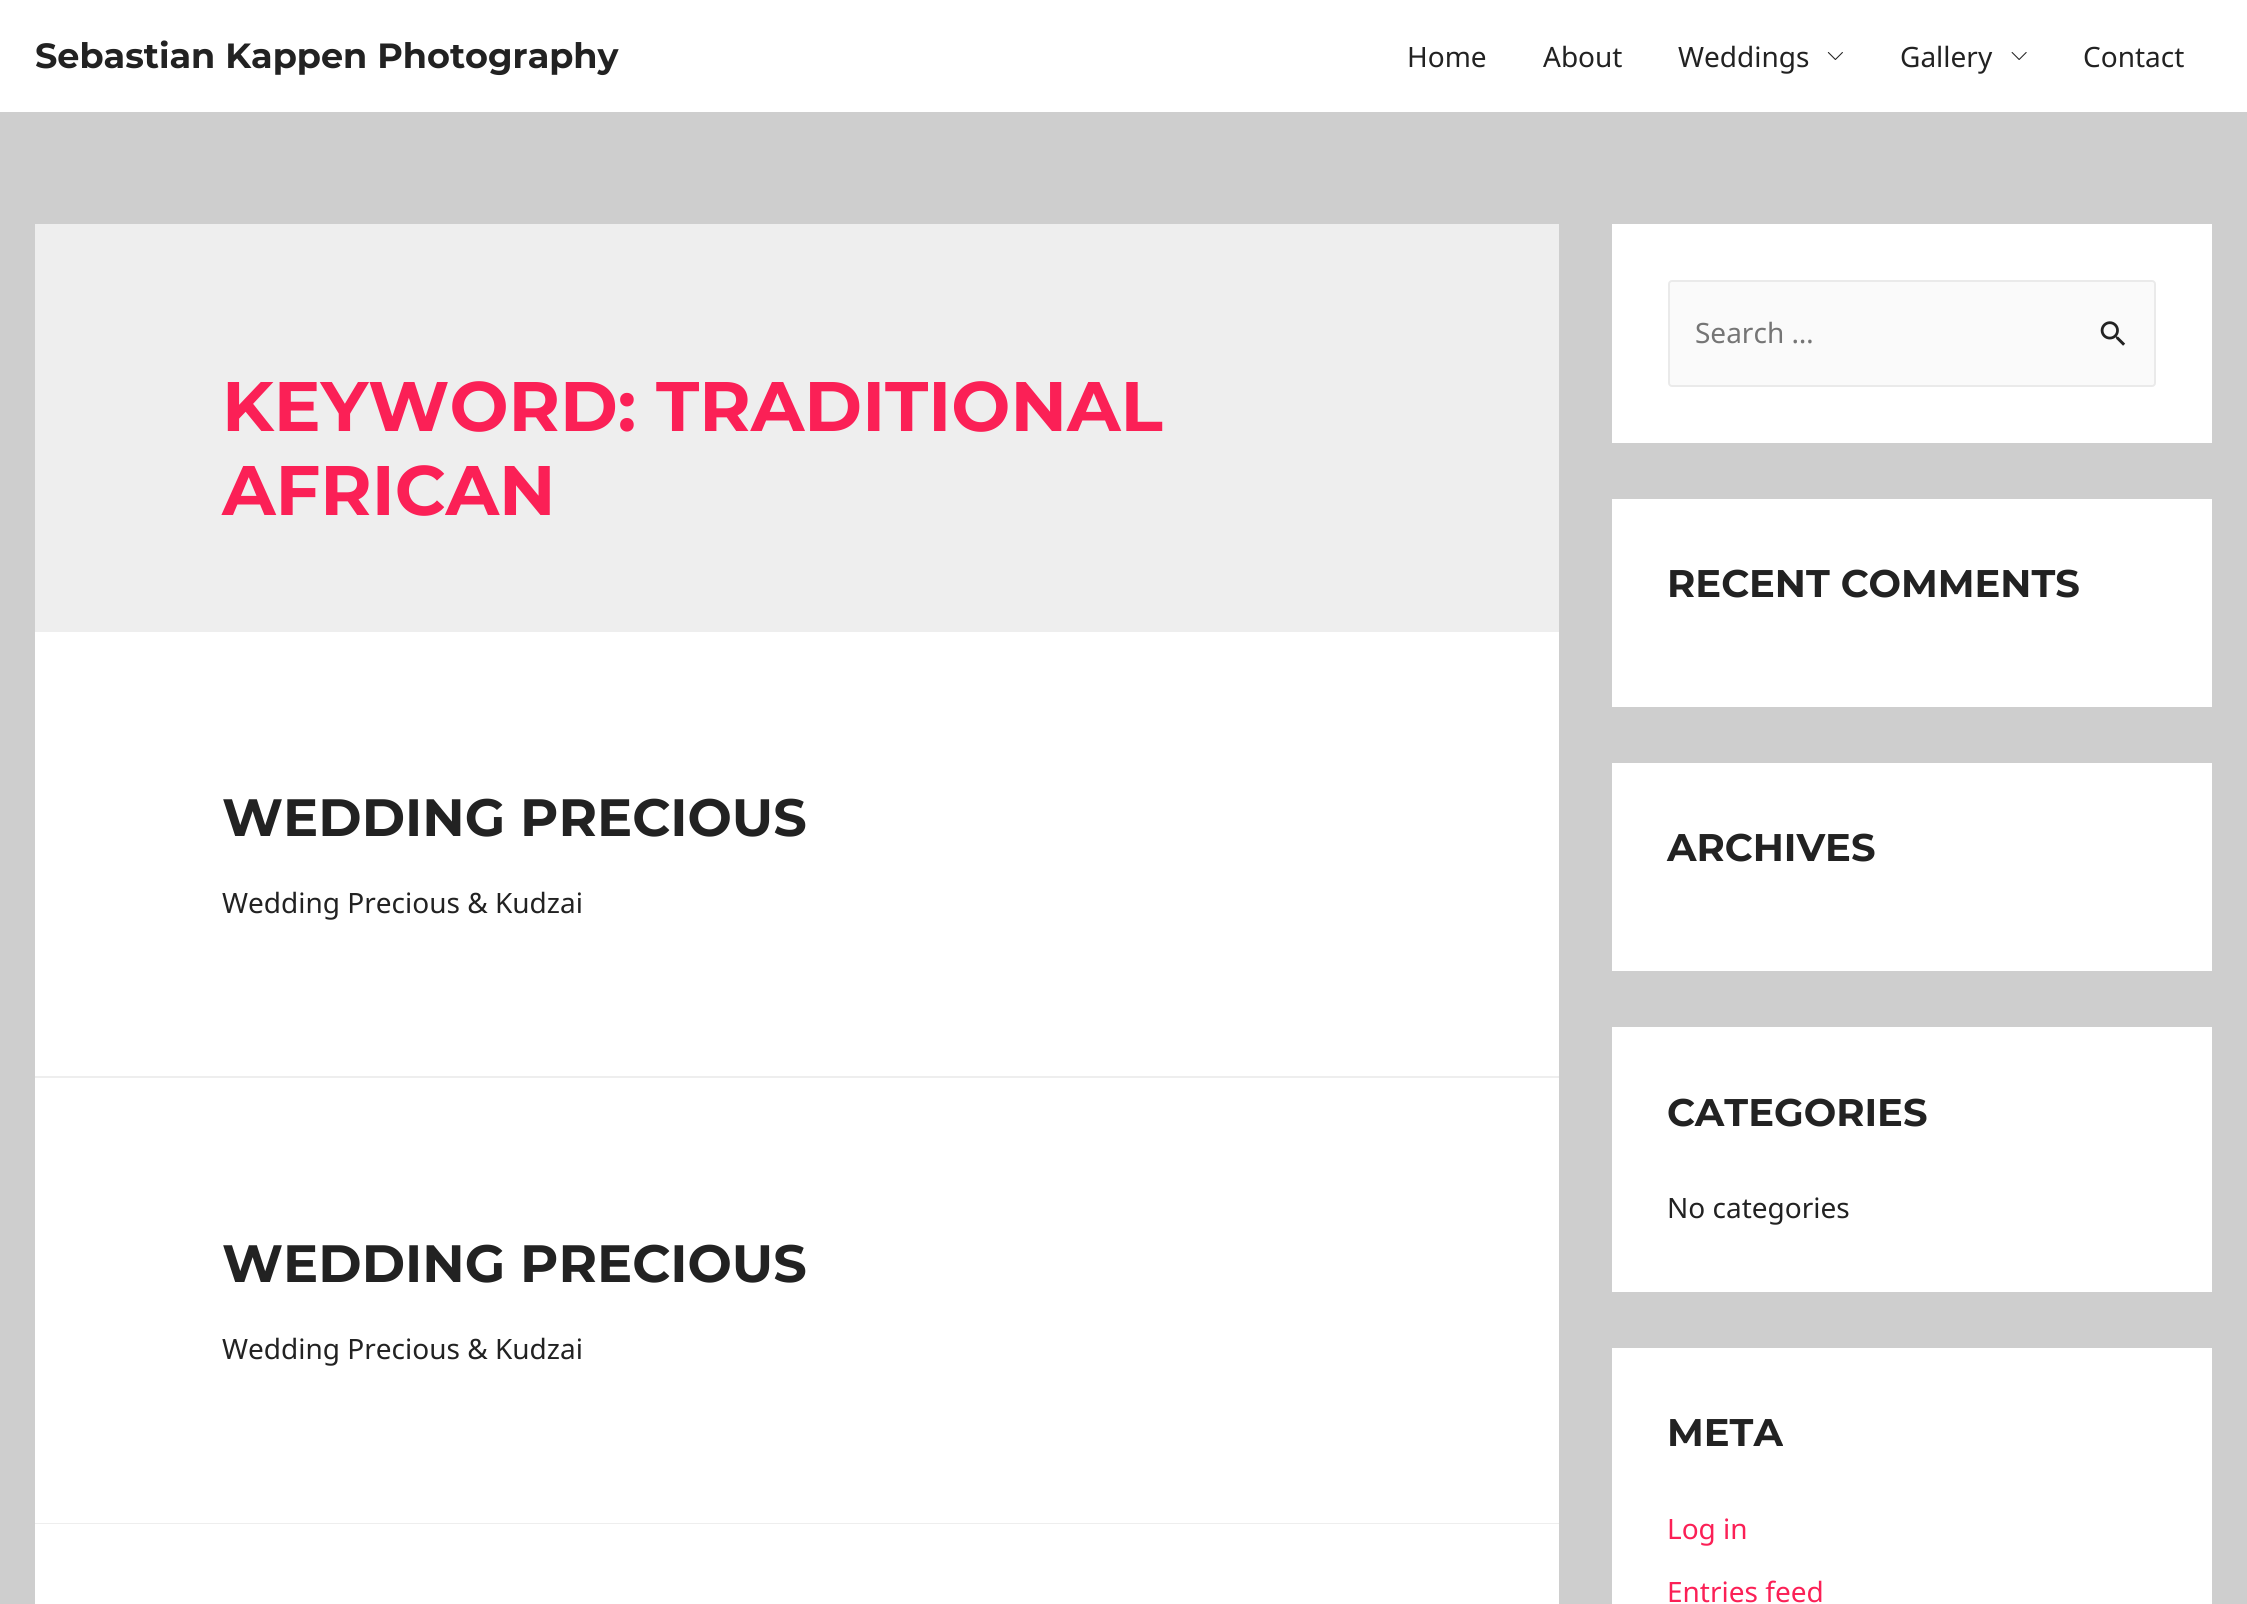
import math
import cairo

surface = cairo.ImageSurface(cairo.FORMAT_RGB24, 2247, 1604)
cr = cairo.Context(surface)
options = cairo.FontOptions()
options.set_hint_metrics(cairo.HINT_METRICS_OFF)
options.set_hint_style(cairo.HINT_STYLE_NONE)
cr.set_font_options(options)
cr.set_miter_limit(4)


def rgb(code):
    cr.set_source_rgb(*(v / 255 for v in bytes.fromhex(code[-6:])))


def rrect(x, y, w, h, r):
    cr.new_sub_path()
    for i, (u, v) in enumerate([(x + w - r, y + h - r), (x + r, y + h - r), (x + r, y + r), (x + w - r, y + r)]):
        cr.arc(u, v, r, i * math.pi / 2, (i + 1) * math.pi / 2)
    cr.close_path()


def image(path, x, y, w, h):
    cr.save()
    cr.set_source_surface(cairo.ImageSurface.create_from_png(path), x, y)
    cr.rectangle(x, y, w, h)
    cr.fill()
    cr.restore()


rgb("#cecece")
cr.paint()
rgb("#ffffff")
cr.rectangle(0, 0, 2247, 112)
cr.fill()
image("img/1.png", 1827, 52, 16, 8)
image("img/2.png", 2011, 52, 16, 8)
for x, y, w, h, color in [
    (35, 224, 1524, 408, "#eeeeee"),
    (35, 632, 1524, 444, "#ffffff"),
    (35, 1076, 1524, 2, "#eeeeee"),
    (35, 1078, 1524, 445, "#ffffff"),
    (35, 1523, 1524, 1, "#eeeeee"),
    (35, 1524, 1524, 80, "#ffffff"),
    (1612, 224, 600, 219, "#ffffff"),
]:
    rgb(color)
    cr.rectangle(x, y, w, h)
    cr.fill()
rgb("#fafafa")
rrect(1669, 281, 486, 105, 3)
cr.fill_preserve()
rgb("#eaeaea")
cr.stroke()
image("img/3.png", 2100, 321, 26, 25)
for x, y, w, h, color in [
    (1612, 499, 600, 208, "#ffffff"),
    (1612, 763, 600, 208, "#ffffff"),
    (1612, 1027, 600, 265, "#ffffff"),
    (1612, 1348, 600, 256, "#ffffff"),
]:
    rgb(color)
    cr.rectangle(x, y, w, h)
    cr.fill()
cr.select_font_face("Montserrat Thin")
cr.set_font_size(35)
rgb("#222222")
cr.move_to(35, 68)
cr.show_text("Sebastian Kappen Photography")
cr.select_font_face("Noto Sans")
cr.set_font_size(28)
for x, y, s in [
    (1407, 67, "Home"),
    (1543, 67, "About"),
    (1678, 67, "Weddings"),
    (1900, 67, "Gallery"),
    (2083, 67, "Contact"),
]:
    cr.move_to(x, y)
    cr.show_text(s)
cr.select_font_face("Montserrat Thin")
cr.set_font_size(70)
rgb("#fb2056")
cr.move_to(222, 431)
cr.show_text("KEYWORD: TRADITIONAL")
cr.move_to(222, 515)
cr.show_text("AFRICAN")
cr.set_font_size(52.5)
rgb("#222222")
cr.move_to(222, 836)
cr.show_text("WEDDING PRECIOUS")
cr.select_font_face("Noto Sans")
cr.set_font_size(28)
cr.move_to(222, 913)
cr.show_text("Wedding Precious & Kudzai")
cr.select_font_face("Montserrat Thin")
cr.set_font_size(52.5)
cr.move_to(222, 1282)
cr.show_text("WEDDING PRECIOUS")
cr.select_font_face("Noto Sans")
cr.set_font_size(28)
cr.move_to(222, 1359)
cr.show_text("Wedding Precious & Kudzai")
rgb("#757575")
cr.move_to(1695, 343)
cr.show_text("Search …")
cr.select_font_face("Montserrat Thin")
cr.set_font_size(38.5)
rgb("#222222")
for x, y, s in [
    (1667, 597, "RECENT COMMENTS"),
    (1667, 861, "ARCHIVES"),
    (1667, 1126, "CATEGORIES"),
]:
    cr.move_to(x, y)
    cr.show_text(s)
cr.select_font_face("Noto Sans")
cr.set_font_size(28)
cr.move_to(1667, 1218)
cr.show_text("No categories")
cr.select_font_face("Montserrat Thin")
cr.set_font_size(38.5)
cr.move_to(1667, 1446)
cr.show_text("META")
cr.select_font_face("Noto Sans")
cr.set_font_size(28)
rgb("#fb2056")
cr.move_to(1667, 1539)
cr.show_text("Log in")
cr.move_to(1667, 1602)
cr.show_text("Entries feed")
surface.write_to_png("page.png")
